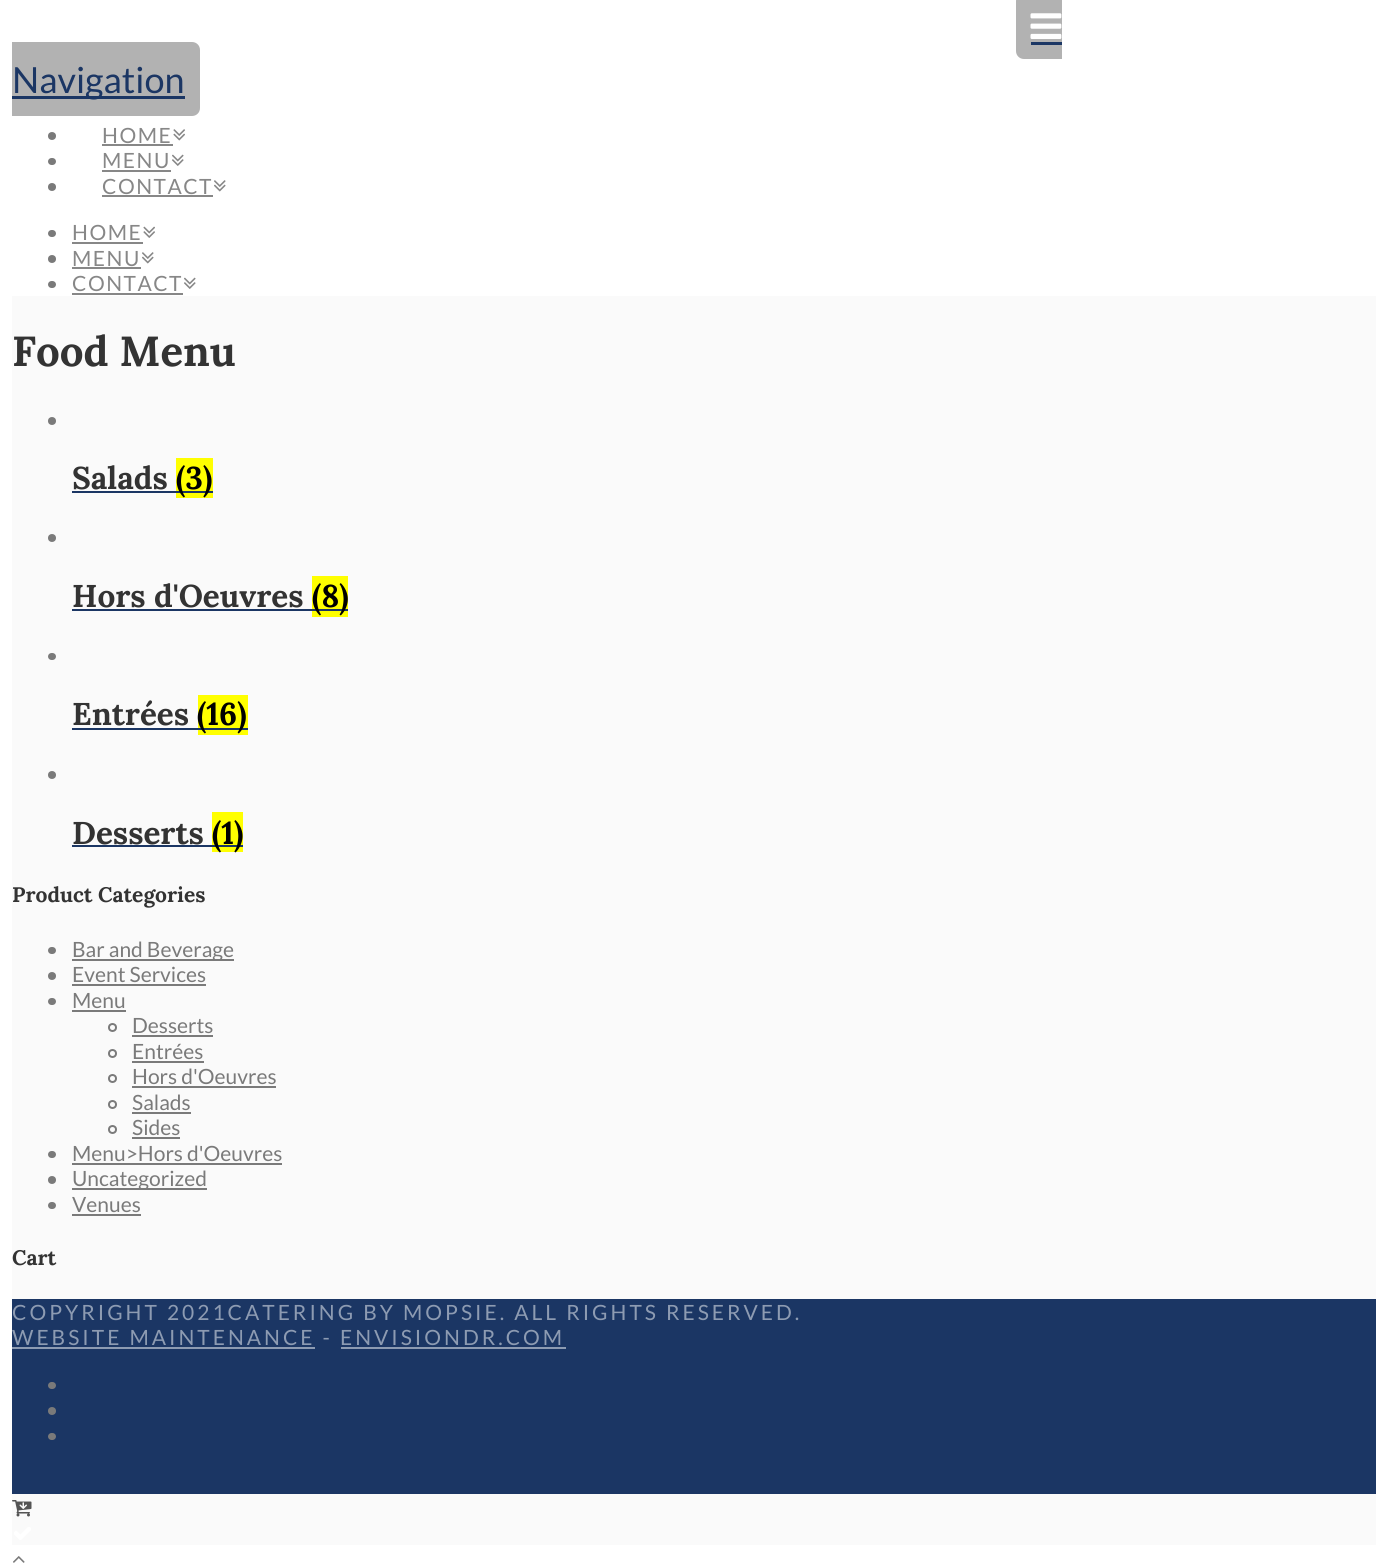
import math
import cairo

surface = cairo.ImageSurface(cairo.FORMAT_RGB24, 1387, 1563)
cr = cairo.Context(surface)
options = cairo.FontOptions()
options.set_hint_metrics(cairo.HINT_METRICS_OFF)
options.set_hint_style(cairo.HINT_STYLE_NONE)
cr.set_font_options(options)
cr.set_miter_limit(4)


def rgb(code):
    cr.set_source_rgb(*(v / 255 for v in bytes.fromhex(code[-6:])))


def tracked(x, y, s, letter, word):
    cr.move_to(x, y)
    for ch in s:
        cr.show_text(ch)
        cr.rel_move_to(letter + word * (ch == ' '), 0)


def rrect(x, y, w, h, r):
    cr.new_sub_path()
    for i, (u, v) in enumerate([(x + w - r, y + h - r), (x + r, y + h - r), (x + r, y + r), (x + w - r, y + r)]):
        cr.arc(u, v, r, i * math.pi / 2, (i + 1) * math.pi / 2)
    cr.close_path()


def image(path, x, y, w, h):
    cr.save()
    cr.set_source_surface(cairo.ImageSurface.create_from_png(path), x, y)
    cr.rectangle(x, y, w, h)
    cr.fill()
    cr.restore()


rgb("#ffffff")
cr.paint()
rgb("#fafafa")
cr.rectangle(12, 296, 1364, 1249)
cr.fill()
rgb("#b2b2b2")
cr.new_path()
cr.move_to(1024, -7)
cr.line_to(1062, -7)
cr.line_to(1062, 59)
cr.line_to(1024, 59)
cr.curve_to(1019.5, 59, 1016, 55.5, 1016, 51)
cr.line_to(1016, 1)
cr.curve_to(1016, -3.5, 1019.5, -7, 1024, -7)
cr.close_path()
cr.fill()
cr.new_path()
cr.move_to(12, 42)
cr.line_to(192, 42)
cr.curve_to(196.5, 42, 200, 45.5, 200, 50)
cr.line_to(200, 108)
cr.curve_to(200, 112.5, 196.5, 116, 192, 116)
cr.line_to(12, 116)
cr.close_path()
cr.fill()
rgb("#1b3664")
cr.rectangle(1031, 42, 31, 3)
cr.fill()
image("img/1.png", 1030, 13, 32, 26)
cr.rectangle(12, 96, 173, 3)
cr.fill()
rgb("#7a7a7a")
cr.arc(52, 136, 4, 0, 2 * math.pi)
cr.fill()
rgb("#878787")
cr.rectangle(102, 144, 71, 2)
cr.fill()
image("img/2.png", 173, 129, 12, 12)
rgb("#7a7a7a")
rrect(48, 158, 8, 7, 3.5)
cr.fill()
rgb("#878787")
cr.rectangle(102, 170, 69, 2)
cr.fill()
image("img/3.png", 172, 154, 12, 12)
rgb("#7a7a7a")
cr.arc(52, 187, 4, 0, 2 * math.pi)
cr.fill()
rgb("#878787")
cr.rectangle(102, 195, 111, 2)
cr.fill()
image("img/4.png", 214, 180, 12, 12)
rgb("#7a7a7a")
rrect(48, 230, 8, 7, 3.5)
cr.fill()
rgb("#878787")
cr.rectangle(72, 242, 71, 2)
cr.fill()
image("img/5.png", 143, 226, 12, 12)
rgb("#7a7a7a")
cr.arc(52, 259, 4, 0, 2 * math.pi)
cr.fill()
rgb("#878787")
cr.rectangle(72, 267, 69, 2)
cr.fill()
image("img/4.png", 142, 252, 12, 12)
rgb("#7a7a7a")
rrect(48, 281, 8, 7, 3.5)
cr.fill()
rgb("#878787")
cr.rectangle(72, 293, 111, 2)
cr.fill()
image("img/3.png", 184, 277, 12, 12)
rgb("#7a7a7a")
cr.arc(52, 421, 4, 0, 2 * math.pi)
cr.fill()
for x, y, w, h, color in [
    (72, 491, 104, 2, "#1b3664"),
    (176, 458, 37, 40, "#ffff00"),
    (176, 491, 37, 2, "#1b3664"),
]:
    rgb(color)
    cr.rectangle(x, y, w, h)
    cr.fill()
rgb("#7a7a7a")
cr.arc(52, 538, 4, 0, 2 * math.pi)
cr.fill()
for x, y, w, h, color in [
    (72, 609, 240, 2, "#1b3664"),
    (312, 576, 36, 41, "#ffff00"),
    (312, 609, 36, 2, "#1b3664"),
]:
    rgb(color)
    cr.rectangle(x, y, w, h)
    cr.fill()
rgb("#7a7a7a")
rrect(48, 653, 8, 7, 3.5)
cr.fill()
for x, y, w, h, color in [
    (72, 728, 126, 2, "#1b3664"),
    (198, 695, 50, 40, "#ffff00"),
    (198, 728, 50, 2, "#1b3664"),
]:
    rgb(color)
    cr.rectangle(x, y, w, h)
    cr.fill()
rgb("#7a7a7a")
cr.arc(52, 775, 4, 0, 2 * math.pi)
cr.fill()
for x, y, w, h, color in [
    (72, 845, 140, 2, "#1b3664"),
    (212, 812, 31, 40, "#ffff00"),
    (212, 845, 31, 2, "#1b3664"),
]:
    rgb(color)
    cr.rectangle(x, y, w, h)
    cr.fill()
rgb("#7a7a7a")
rrect(48, 947, 8, 7, 3.5)
cr.fill()
cr.rectangle(72, 959, 162, 2)
cr.fill()
cr.arc(52, 976, 4, 0, 2 * math.pi)
cr.fill()
cr.rectangle(72, 984, 134, 2)
cr.fill()
rrect(48, 998, 8, 7, 3.5)
cr.fill()
cr.rectangle(72, 1010, 54, 2)
cr.fill()
cr.arc(112.5, 1027.5, 3.5, 0, 2 * math.pi)
cr.stroke()
cr.rectangle(132, 1035, 81, 2)
cr.fill()
cr.arc(112.5, 1053.5, 3.5, 0, 2 * math.pi)
cr.stroke()
cr.rectangle(132, 1061, 72, 2)
cr.fill()
cr.arc(112.5, 1078.5, 3.5, 0, 2 * math.pi)
cr.stroke()
cr.rectangle(132, 1086, 144, 2)
cr.fill()
cr.arc(112.5, 1104.5, 3.5, 0, 2 * math.pi)
cr.stroke()
cr.rectangle(132, 1112, 59, 2)
cr.fill()
cr.arc(112.5, 1129.5, 3.5, 0, 2 * math.pi)
cr.stroke()
cr.rectangle(132, 1137, 48, 2)
cr.fill()
rrect(48, 1151, 8, 7, 3.5)
cr.fill()
cr.rectangle(72, 1163, 210, 2)
cr.fill()
cr.arc(52, 1180, 4, 0, 2 * math.pi)
cr.fill()
cr.rectangle(72, 1188, 135, 2)
cr.fill()
rrect(48, 1202, 8, 7, 3.5)
cr.fill()
for x, y, w, h, color in [
    (72, 1214, 69, 2, "#7a7a7a"),
    (12, 1299, 1364, 195, "#1b3664"),
    (12, 1347, 303, 2, "#8d9bb2"),
    (341, 1347, 225, 2, "#8d9bb2"),
]:
    rgb(color)
    cr.rectangle(x, y, w, h)
    cr.fill()
rgb("#7a7a7a")
rrect(48, 1382, 8, 7, 3.5)
cr.fill()
cr.arc(52, 1411, 4, 0, 2 * math.pi)
cr.fill()
rrect(48, 1433, 8, 7, 3.5)
cr.fill()
image("img/6.png", 12, 1500, 20, 17)
image("img/7.png", 14, 1527, 17, 13)
image("img/8.png", 13, 1556, 12, 7)
cr.select_font_face("Lato")
cr.set_font_size(36)
rgb("#1b3664")
cr.move_to(12, 93)
cr.show_text("Navigation")
cr.set_font_size(21)
rgb("#878787")
for x, y, s in [
    (102, 143, "HOME"),
    (102, 168, "MENU"),
    (102, 194, "CONTACT"),
    (72, 240, "HOME"),
    (72, 266, "MENU"),
    (72, 291, "CONTACT"),
]:
    tracked(x, y, s, 1.5, 0)
cr.select_font_face("Lora", cairo.FONT_SLANT_NORMAL, cairo.FONT_WEIGHT_BOLD)
cr.set_font_size(42)
rgb("#333333")
cr.move_to(12, 366)
cr.show_text("Food Menu")
cr.set_font_size(31.5)
cr.move_to(72, 489)
cr.show_text("Salads")
rgb("#000000")
cr.move_to(176, 489)
cr.show_text("(3)")
rgb("#333333")
cr.move_to(72, 607)
cr.show_text("Hors d'Oeuvres")
rgb("#000000")
cr.move_to(312, 607)
cr.show_text("(8)")
rgb("#333333")
cr.move_to(72, 725)
cr.show_text("Entrées")
rgb("#000000")
cr.move_to(197, 725)
cr.show_text("(16)")
rgb("#333333")
cr.move_to(72, 844)
cr.show_text("Desserts")
rgb("#000000")
cr.move_to(212, 844)
cr.show_text("(1)")
cr.set_font_size(21)
rgb("#333333")
cr.move_to(12, 902)
cr.show_text("Product Categories")
cr.select_font_face("Lato")
rgb("#7a7a7a")
for x, y, s in [
    (72, 957, "Bar and Beverage"),
    (72, 982, "Event Services"),
    (72, 1008, "Menu"),
    (132, 1033, "Desserts"),
    (132, 1059, "Entrées"),
    (132, 1084, "Hors d'Oeuvres"),
    (132, 1110, "Salads"),
    (132, 1135, "Sides"),
    (72, 1161, "Menu>Hors d'Oeuvres"),
    (72, 1186, "Uncategorized"),
    (72, 1212, "Venues"),
]:
    cr.move_to(x, y)
    cr.show_text(s)
cr.select_font_face("Lora", cairo.FONT_SLANT_NORMAL, cairo.FONT_WEIGHT_BOLD)
rgb("#333333")
cr.move_to(12, 1265)
cr.show_text("Cart")
cr.select_font_face("Lato")
rgb("#8d9bb2")
tracked(12, 1320, "COPYRIGHT 2021CATERING BY MOPSIE. ALL RIGHTS RESERVED.", 3, 0)
tracked(12, 1345, "WEBSITE MAINTENANCE - ENVISIONDR.COM", 3, 0)
surface.write_to_png("page.png")
